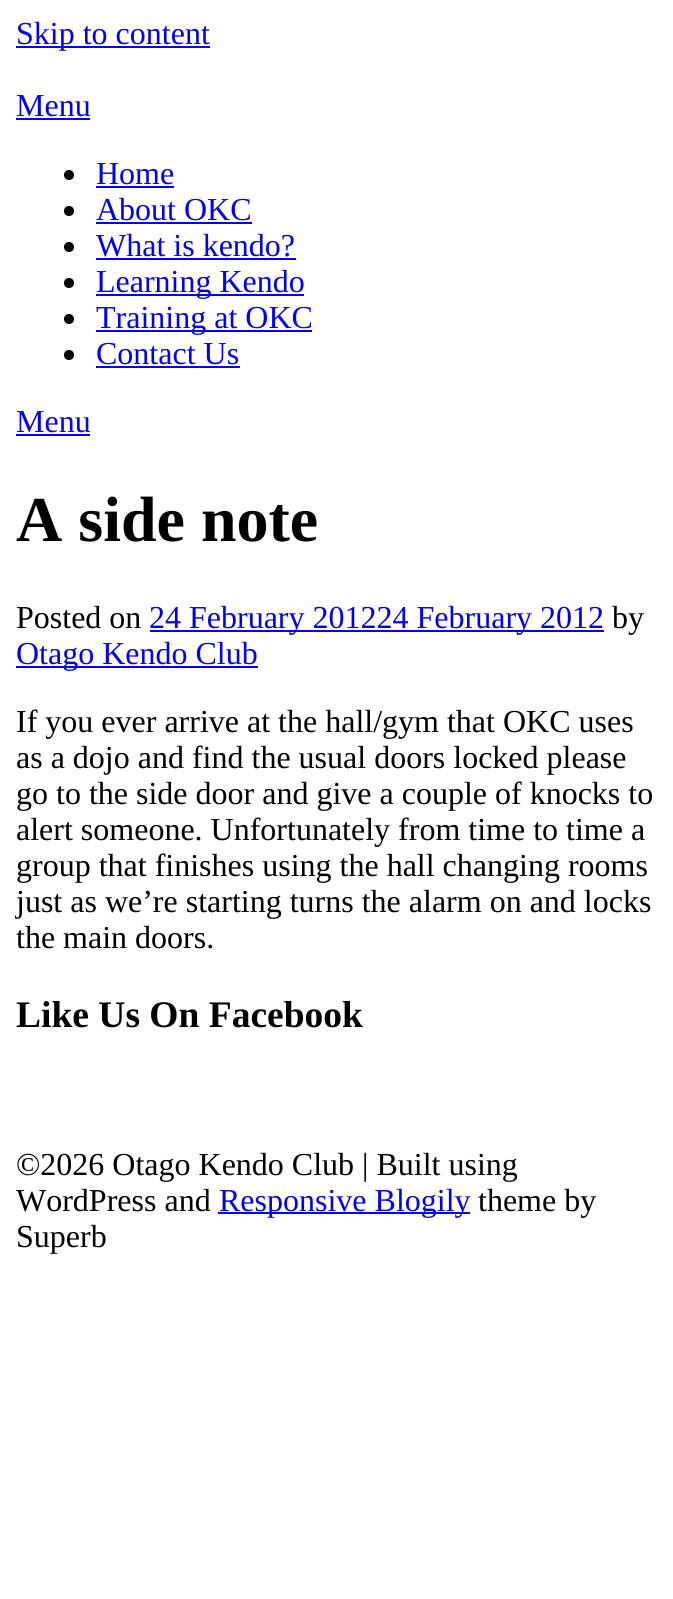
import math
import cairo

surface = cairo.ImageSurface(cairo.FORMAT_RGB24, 673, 1599)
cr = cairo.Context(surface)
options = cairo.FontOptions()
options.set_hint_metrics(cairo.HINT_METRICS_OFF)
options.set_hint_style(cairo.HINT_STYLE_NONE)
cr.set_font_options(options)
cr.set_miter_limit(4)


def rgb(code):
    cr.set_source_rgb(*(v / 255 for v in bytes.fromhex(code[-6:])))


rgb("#ffffff")
cr.paint()
rgb("#0000ee")
cr.rectangle(16, 46, 194, 2)
cr.fill()
cr.rectangle(16, 118, 74, 2)
cr.fill()
rgb("#000000")
cr.arc(69, 175, 5, 0, 2 * math.pi)
cr.fill()
rgb("#0000ee")
cr.rectangle(96, 186, 78, 2)
cr.fill()
rgb("#000000")
cr.arc(69, 211, 5, 0, 2 * math.pi)
cr.fill()
rgb("#0000ee")
cr.rectangle(96, 222, 156, 2)
cr.fill()
rgb("#000000")
cr.arc(69, 247, 5, 0, 2 * math.pi)
cr.fill()
rgb("#0000ee")
cr.rectangle(96, 258, 200, 2)
cr.fill()
rgb("#000000")
cr.arc(69, 283, 5, 0, 2 * math.pi)
cr.fill()
rgb("#0000ee")
cr.rectangle(96, 294, 208, 2)
cr.fill()
rgb("#000000")
cr.arc(69, 319, 5, 0, 2 * math.pi)
cr.fill()
rgb("#0000ee")
cr.rectangle(96, 330, 216, 2)
cr.fill()
rgb("#000000")
cr.arc(69, 355, 5, 0, 2 * math.pi)
cr.fill()
for x, y, w, h, color in [
    (96, 366, 144, 2, "#0000ee"),
    (16, 434, 74, 2, "#0000ee"),
    (150, 630, 454, 2, "#0000ee"),
    (16, 666, 242, 2, "#0000ee"),
    (218, 1212, 252, 2, "#0000ee"),
]:
    rgb(color)
    cr.rectangle(x, y, w, h)
    cr.fill()
cr.select_font_face("Liberation Serif")
cr.set_font_size(32)
for x, y, s in [
    (16, 44, "Skip to content"),
    (16, 116, "Menu"),
    (96, 184, "Home"),
    (96, 220, "About OKC"),
    (96, 256, "What is kendo?"),
    (96, 292, "Learning Kendo"),
    (96, 328, "Training at OKC"),
    (96, 364, "Contact Us"),
    (16, 432, "Menu"),
]:
    cr.move_to(x, y)
    cr.show_text(s)
cr.select_font_face("Liberation Serif", cairo.FONT_SLANT_NORMAL, cairo.FONT_WEIGHT_BOLD)
cr.set_font_size(64)
rgb("#000000")
cr.move_to(16, 541)
cr.show_text("A side note")
cr.select_font_face("Liberation Serif")
cr.set_font_size(32)
cr.move_to(16, 628)
cr.show_text("Posted on")
rgb("#0000ee")
cr.move_to(149, 628)
cr.show_text("24 February 201224 February 2012")
rgb("#000000")
cr.move_to(612, 628)
cr.show_text("by")
rgb("#0000ee")
cr.move_to(16, 664)
cr.show_text("Otago Kendo Club")
rgb("#000000")
for x, y, s in [
    (16, 732, "If you ever arrive at the hall/gym that OKC uses"),
    (16, 768, "as a dojo and find the usual doors locked please"),
    (16, 804, "go to the side door and give a couple of knocks to"),
    (16, 840, "alert someone. Unfortunately from time to time a"),
    (16, 876, "group that finishes using the hall changing rooms"),
    (16, 912, "just as we’re starting turns the alarm on and locks"),
    (16, 948, "the main doors."),
]:
    cr.move_to(x, y)
    cr.show_text(s)
cr.select_font_face("Liberation Serif", cairo.FONT_SLANT_NORMAL, cairo.FONT_WEIGHT_BOLD)
cr.set_font_size(37.5)
cr.move_to(16, 1027)
cr.show_text("Like Us On Facebook")
cr.select_font_face("Liberation Serif")
cr.set_font_size(32)
cr.move_to(16, 1175)
cr.show_text("©2026 Otago Kendo Club | Built using")
cr.move_to(16, 1211)
cr.show_text("WordPress and")
rgb("#0000ee")
cr.move_to(219, 1211)
cr.show_text("Responsive Blogily")
rgb("#000000")
cr.move_to(478, 1211)
cr.show_text("theme by")
cr.move_to(16, 1247)
cr.show_text("Superb")
surface.write_to_png("page.png")
